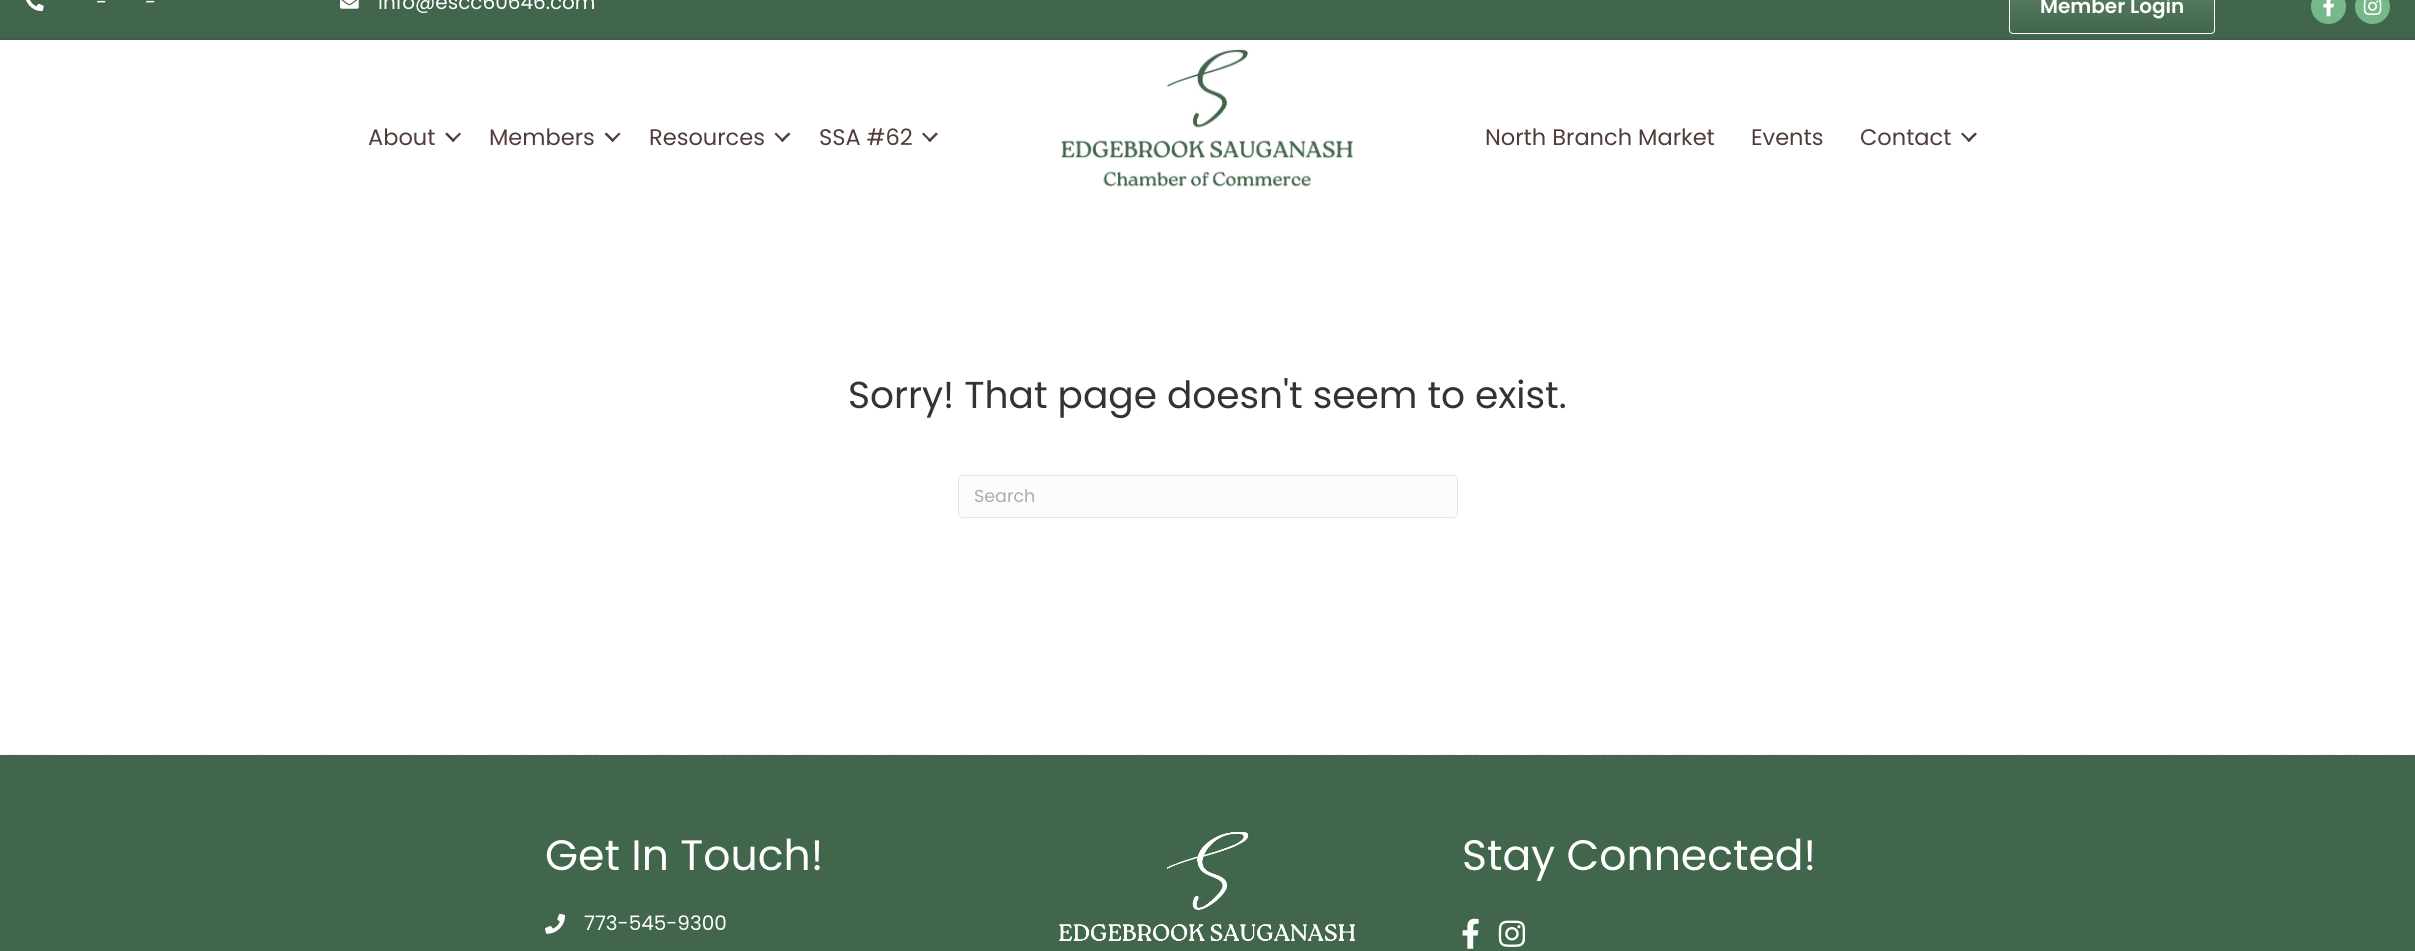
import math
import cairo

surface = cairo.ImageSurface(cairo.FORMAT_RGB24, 2415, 951)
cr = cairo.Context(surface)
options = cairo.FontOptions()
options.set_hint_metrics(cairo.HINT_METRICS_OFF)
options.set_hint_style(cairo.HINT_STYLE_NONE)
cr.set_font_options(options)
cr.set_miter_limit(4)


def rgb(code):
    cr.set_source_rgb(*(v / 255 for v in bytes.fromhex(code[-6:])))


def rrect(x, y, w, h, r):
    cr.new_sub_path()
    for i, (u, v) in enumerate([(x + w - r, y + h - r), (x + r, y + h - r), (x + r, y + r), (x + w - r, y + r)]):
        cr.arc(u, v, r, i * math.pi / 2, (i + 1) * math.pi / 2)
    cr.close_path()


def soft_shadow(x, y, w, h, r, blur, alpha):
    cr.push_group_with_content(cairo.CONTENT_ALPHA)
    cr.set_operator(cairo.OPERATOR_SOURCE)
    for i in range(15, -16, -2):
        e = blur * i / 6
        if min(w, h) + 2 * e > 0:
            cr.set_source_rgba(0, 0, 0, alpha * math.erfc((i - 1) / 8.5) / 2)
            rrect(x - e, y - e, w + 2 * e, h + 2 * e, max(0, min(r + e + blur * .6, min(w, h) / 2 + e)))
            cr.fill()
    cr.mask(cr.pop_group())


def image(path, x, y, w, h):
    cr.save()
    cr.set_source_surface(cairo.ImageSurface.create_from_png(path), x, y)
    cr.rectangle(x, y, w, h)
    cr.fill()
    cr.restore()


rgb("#41664c")
cr.paint()
image("img/1.png", 26, 0, 18, 12)
image("img/2.png", 340, 0, 19, 9)
cr.save()
rrect(2009, -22, 206, 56, 4)
cr.clip()
gradient = cairo.LinearGradient(2112, -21, 2112, 33)
gradient.add_color_stop_rgba(0, 0.373, 0.518, 0.416, 1)
gradient.add_color_stop_rgba(1, 0.255, 0.4, 0.298, 1)
cr.set_source(gradient)
cr.rectangle(2009, 0, 206, 33)
cr.fill()
cr.restore()
rrect(2009.5, -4.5, 205, 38, 3.5)
rgb("#ffffff")
cr.set_line_width(1)
cr.stroke()
rgb("#76b889")
cr.arc(2328.5, 6.5, 17.5, 0, 2 * math.pi)
cr.fill()
image("img/3.png", 2323, 0, 11, 17)
cr.arc(2372.5, 6.5, 17.5, 0, 2 * math.pi)
cr.fill()
image("img/4.png", 2363, 0, 19, 15)
rgb("#333333")
soft_shadow(1, 41, 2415, 159, 0, 2, 1)
rgb("#ffffff")
cr.rectangle(0, 40, 2415, 715)
cr.fill()
rgb("#523b3b")
cr.new_path()
cr.move_to(459.5, 132.5)
cr.line_to(461, 134)
cr.line_to(453, 142)
cr.line_to(451.5, 140.5)
cr.close_path()
cr.fill()
cr.new_path()
cr.move_to(447, 132.5)
cr.line_to(455, 140.5)
cr.line_to(453, 142)
cr.line_to(445, 134)
cr.close_path()
cr.fill()
cr.new_path()
cr.move_to(619, 132.5)
cr.line_to(620.5, 134)
cr.line_to(612.5, 142)
cr.line_to(611, 140.5)
cr.close_path()
cr.fill()
cr.new_path()
cr.move_to(606.5, 132.5)
cr.line_to(614.5, 140.5)
cr.line_to(612.5, 142)
cr.line_to(604.5, 134)
cr.close_path()
cr.fill()
cr.new_path()
cr.move_to(788.5, 132.5)
cr.line_to(790.5, 134)
cr.line_to(782.5, 142)
cr.line_to(780.5, 140.5)
cr.close_path()
cr.fill()
cr.new_path()
cr.move_to(776, 132.5)
cr.line_to(784, 140.5)
cr.line_to(782.5, 142)
cr.line_to(774.5, 134)
cr.close_path()
cr.fill()
cr.new_path()
cr.move_to(936, 132.5)
cr.line_to(938, 134)
cr.line_to(930, 142)
cr.line_to(928, 140.5)
cr.close_path()
cr.fill()
cr.new_path()
cr.move_to(923.5, 132.5)
cr.line_to(931.5, 140.5)
cr.line_to(930, 142)
cr.line_to(922, 134)
cr.close_path()
cr.fill()
image("img/5.png", 1061, 49, 292, 138)
cr.new_path()
cr.move_to(1975, 132.5)
cr.line_to(1977, 134)
cr.line_to(1969, 142)
cr.line_to(1967, 140.5)
cr.close_path()
cr.fill()
cr.new_path()
cr.move_to(1962.5, 132.5)
cr.line_to(1970.5, 140.5)
cr.line_to(1969, 142)
cr.line_to(1961, 134)
cr.close_path()
cr.fill()
rgb("#fcfcfc")
rrect(958.5, 475.5, 499, 42, 4.5)
cr.fill_preserve()
rgb("#e6e6e6")
cr.stroke()
image("img/6.png", 0, 754, 2415, 1)
image("img/7.png", 545, 913, 20, 21)
image("img/8.png", 1059, 831, 296, 110)
image("img/9.png", 1462, 918, 17, 31)
image("img/10.png", 1498, 920, 28, 27)
cr.select_font_face("Poppins")
cr.set_font_size(20)
rgb("#ffffff")
for x, y, s in [
    (96, 9, "-"),
    (145, 9, "-"),
    (378, 9, "info@escc60646.com"),
]:
    cr.move_to(x, y)
    cr.show_text(s)
cr.select_font_face("Poppins SemiBold")
cr.move_to(2040, 13)
cr.show_text("Member Login")
cr.select_font_face("Poppins")
cr.set_font_size(22.5)
rgb("#523b3b")
for x, y, s in [
    (368, 145, "About"),
    (489, 145, "Members"),
    (649, 145, "Resources"),
    (819, 145, "SSA #62"),
    (1485, 145, "North Branch Market"),
    (1751, 145, "Events"),
    (1860, 145, "Contact"),
]:
    cr.move_to(x, y)
    cr.show_text(s)
cr.set_font_size(37.5)
rgb("#333333")
cr.move_to(848, 408)
cr.show_text("Sorry! That page doesn't seem to exist.")
cr.set_font_size(17.5)
rgb("#acacac")
cr.move_to(974, 502)
cr.show_text("Search")
cr.set_font_size(42.5)
rgb("#ffffff")
cr.move_to(545, 870)
cr.show_text("Get In Touch!")
cr.set_font_size(20)
cr.move_to(584, 930)
cr.show_text("773-545-9300")
cr.set_font_size(42.5)
cr.move_to(1462, 870)
cr.show_text("Stay Connected!")
surface.write_to_png("page.png")
